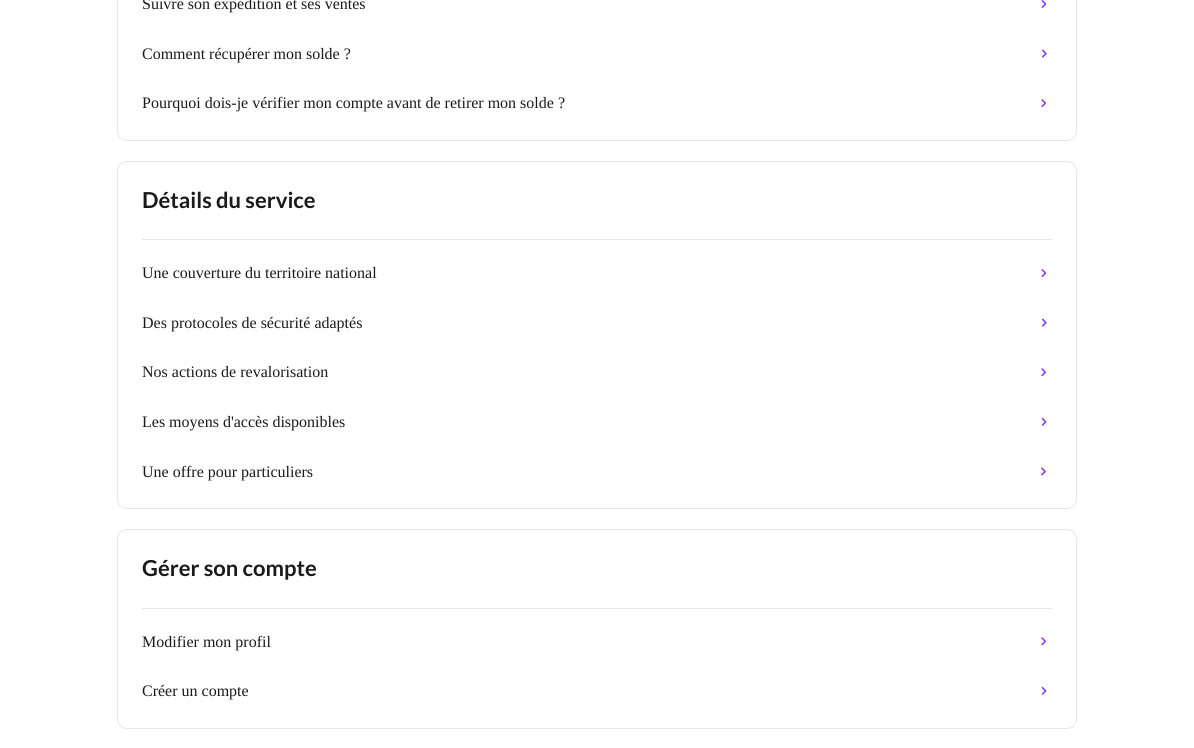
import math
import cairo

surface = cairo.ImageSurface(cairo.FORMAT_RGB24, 1194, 748)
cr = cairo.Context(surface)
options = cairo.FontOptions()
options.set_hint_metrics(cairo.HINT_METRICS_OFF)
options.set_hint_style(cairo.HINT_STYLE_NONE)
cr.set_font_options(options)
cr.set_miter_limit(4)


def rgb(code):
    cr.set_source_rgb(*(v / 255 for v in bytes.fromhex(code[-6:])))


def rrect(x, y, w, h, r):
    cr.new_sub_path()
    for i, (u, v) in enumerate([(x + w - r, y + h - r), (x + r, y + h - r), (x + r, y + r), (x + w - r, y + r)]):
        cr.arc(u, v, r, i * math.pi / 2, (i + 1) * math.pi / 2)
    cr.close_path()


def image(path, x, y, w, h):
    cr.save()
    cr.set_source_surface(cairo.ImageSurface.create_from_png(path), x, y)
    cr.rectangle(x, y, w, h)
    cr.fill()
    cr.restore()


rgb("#ffffff")
cr.paint()
rrect(117.5, -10.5, 959, 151, 9.5)
rgb("#e6e6e6")
cr.set_line_width(1)
cr.stroke()
image("img/1.png", 1041, 0, 6, 8)
image("img/2.png", 1042, 49, 5, 9)
image("img/3.png", 1041, 99, 6, 9)
rrect(117.5, 161.5, 959, 347, 9.5)
cr.stroke()
cr.rectangle(142, 239, 910, 1)
cr.fill()
image("img/4.png", 1041, 269, 6, 8)
image("img/5.png", 1041, 318, 6, 9)
image("img/6.png", 1041, 368, 6, 9)
image("img/7.png", 1041, 417, 6, 9)
image("img/8.png", 1041, 467, 5, 9)
rrect(117.5, 529.5, 959, 199, 9.5)
cr.stroke()
cr.rectangle(142, 608, 910, 1)
cr.fill()
image("img/9.png", 1041, 637, 5, 9)
image("img/10.png", 1041, 686, 6, 9)
cr.select_font_face("Liberation Serif")
cr.set_font_size(16)
rgb("#1a1a1a")
for x, y, s in [
    (142, 9, "Suivre son expédition et ses ventes"),
    (142, 59, "Comment récupérer mon solde ?"),
    (142, 108, "Pourquoi dois-je vérifier mon compte avant de retirer mon solde ?"),
]:
    cr.move_to(x, y)
    cr.show_text(s)
cr.select_font_face("Lato", cairo.FONT_SLANT_NORMAL, cairo.FONT_WEIGHT_BOLD)
cr.set_font_size(22)
cr.move_to(142, 208)
cr.show_text("Détails du service")
cr.select_font_face("Liberation Serif")
cr.set_font_size(16)
for x, y, s in [
    (142, 278, "Une couverture du territoire national"),
    (142, 328, "Des protocoles de sécurité adaptés"),
    (142, 377, "Nos actions de revalorisation"),
    (142, 427, "Les moyens d'accès disponibles"),
    (142, 477, "Une offre pour particuliers"),
]:
    cr.move_to(x, y)
    cr.show_text(s)
cr.select_font_face("Lato", cairo.FONT_SLANT_NORMAL, cairo.FONT_WEIGHT_BOLD)
cr.set_font_size(22)
cr.move_to(142, 576)
cr.show_text("Gérer son compte")
cr.select_font_face("Liberation Serif")
cr.set_font_size(16)
cr.move_to(142, 647)
cr.show_text("Modifier mon profil")
cr.move_to(142, 696)
cr.show_text("Créer un compte")
surface.write_to_png("page.png")
